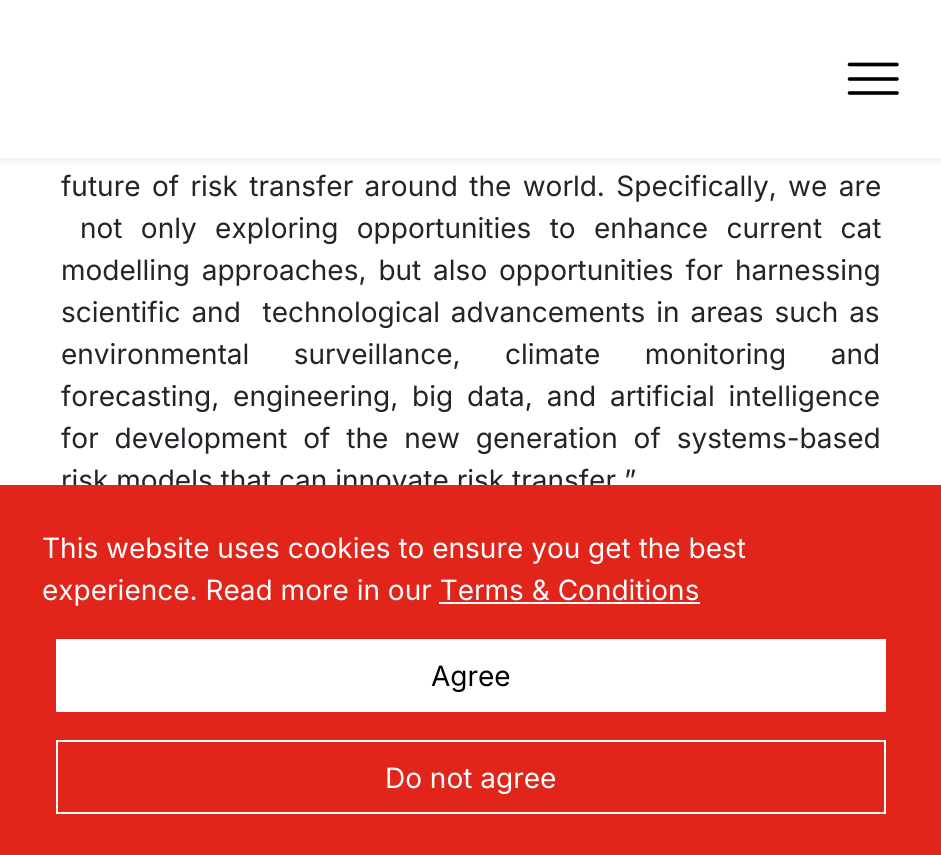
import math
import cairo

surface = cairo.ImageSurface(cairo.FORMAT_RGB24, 941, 855)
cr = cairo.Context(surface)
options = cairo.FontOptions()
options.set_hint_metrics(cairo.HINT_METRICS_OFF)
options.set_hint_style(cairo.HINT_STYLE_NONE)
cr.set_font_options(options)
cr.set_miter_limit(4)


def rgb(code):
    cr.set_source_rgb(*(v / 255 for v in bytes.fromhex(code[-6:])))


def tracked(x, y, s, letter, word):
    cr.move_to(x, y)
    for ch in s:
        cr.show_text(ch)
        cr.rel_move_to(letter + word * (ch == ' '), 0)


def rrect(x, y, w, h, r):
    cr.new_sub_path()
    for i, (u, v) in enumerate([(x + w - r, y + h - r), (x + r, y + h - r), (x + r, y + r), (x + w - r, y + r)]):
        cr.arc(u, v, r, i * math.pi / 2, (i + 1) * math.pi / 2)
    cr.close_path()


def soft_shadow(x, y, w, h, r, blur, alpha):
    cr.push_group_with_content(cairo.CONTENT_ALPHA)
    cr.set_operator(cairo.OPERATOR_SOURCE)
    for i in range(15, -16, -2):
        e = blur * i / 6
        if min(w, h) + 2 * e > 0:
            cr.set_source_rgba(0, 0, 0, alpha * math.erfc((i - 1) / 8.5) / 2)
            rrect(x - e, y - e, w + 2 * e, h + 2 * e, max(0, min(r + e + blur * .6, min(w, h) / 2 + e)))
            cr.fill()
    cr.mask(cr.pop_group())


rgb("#ffffff")
cr.paint()
rgb("#000000")
soft_shadow(0, 4, 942, 157, 0, 3.5, 0.07)
rgb("#ffffff")
cr.rectangle(0, 0, 941, 158)
cr.fill()
cr.new_path()
cr.move_to(849.5, 64.5)
cr.line_to(897, 64.5)
cr.move_to(849.5, 79)
cr.line_to(897, 79)
cr.move_to(849.5, 93)
cr.line_to(897, 93)
rgb("#000000")
cr.set_line_width(3.6)
cr.set_line_cap(cairo.LINE_CAP_ROUND)
cr.stroke()
cr.select_font_face("Inter")
cr.set_font_size(28)
rgb("#212529")
tracked(61, 196, "future of risk transfer around the world. Specifically, we are", 0, 3.5)
tracked(80, 238, "not only exploring opportunities to enhance current cat", 0, 10.5)
tracked(61, 280, "modelling approaches, but also opportunities for harnessing", 0, 4)
tracked(61, 322, "scientific and  technological advancements in areas such as", 0, 3)
tracked(61, 364, "environmental surveillance, climate monitoring and", 0, 36.5)
tracked(61, 406, "forecasting, engineering, big data, and artificial intelligence", 0, 6)
tracked(61, 448, "for development of the new generation of systems-based", 0, 8)
cr.move_to(61, 490)
cr.show_text("risk models that can innovate risk transfer.”")
rgb("#e1251b")
cr.rectangle(0, 485, 941, 370)
cr.fill()
rgb("#ffffff")
cr.move_to(42, 558)
cr.show_text("This website uses cookies to ensure you get the best")
cr.move_to(42, 600)
cr.show_text("experience. Read more in our Terms & Conditions")
cr.rectangle(439, 602, 261, 2)
cr.fill()
cr.rectangle(56, 639, 830, 73)
cr.fill()
rgb("#000000")
cr.move_to(431, 686)
cr.show_text("Agree")
cr.rectangle(57, 741, 828, 72)
rgb("#ffffff")
cr.set_line_width(2)
cr.set_line_cap(cairo.LINE_CAP_BUTT)
cr.stroke()
cr.move_to(385, 788)
cr.show_text("Do not agree")
surface.write_to_png("page.png")
